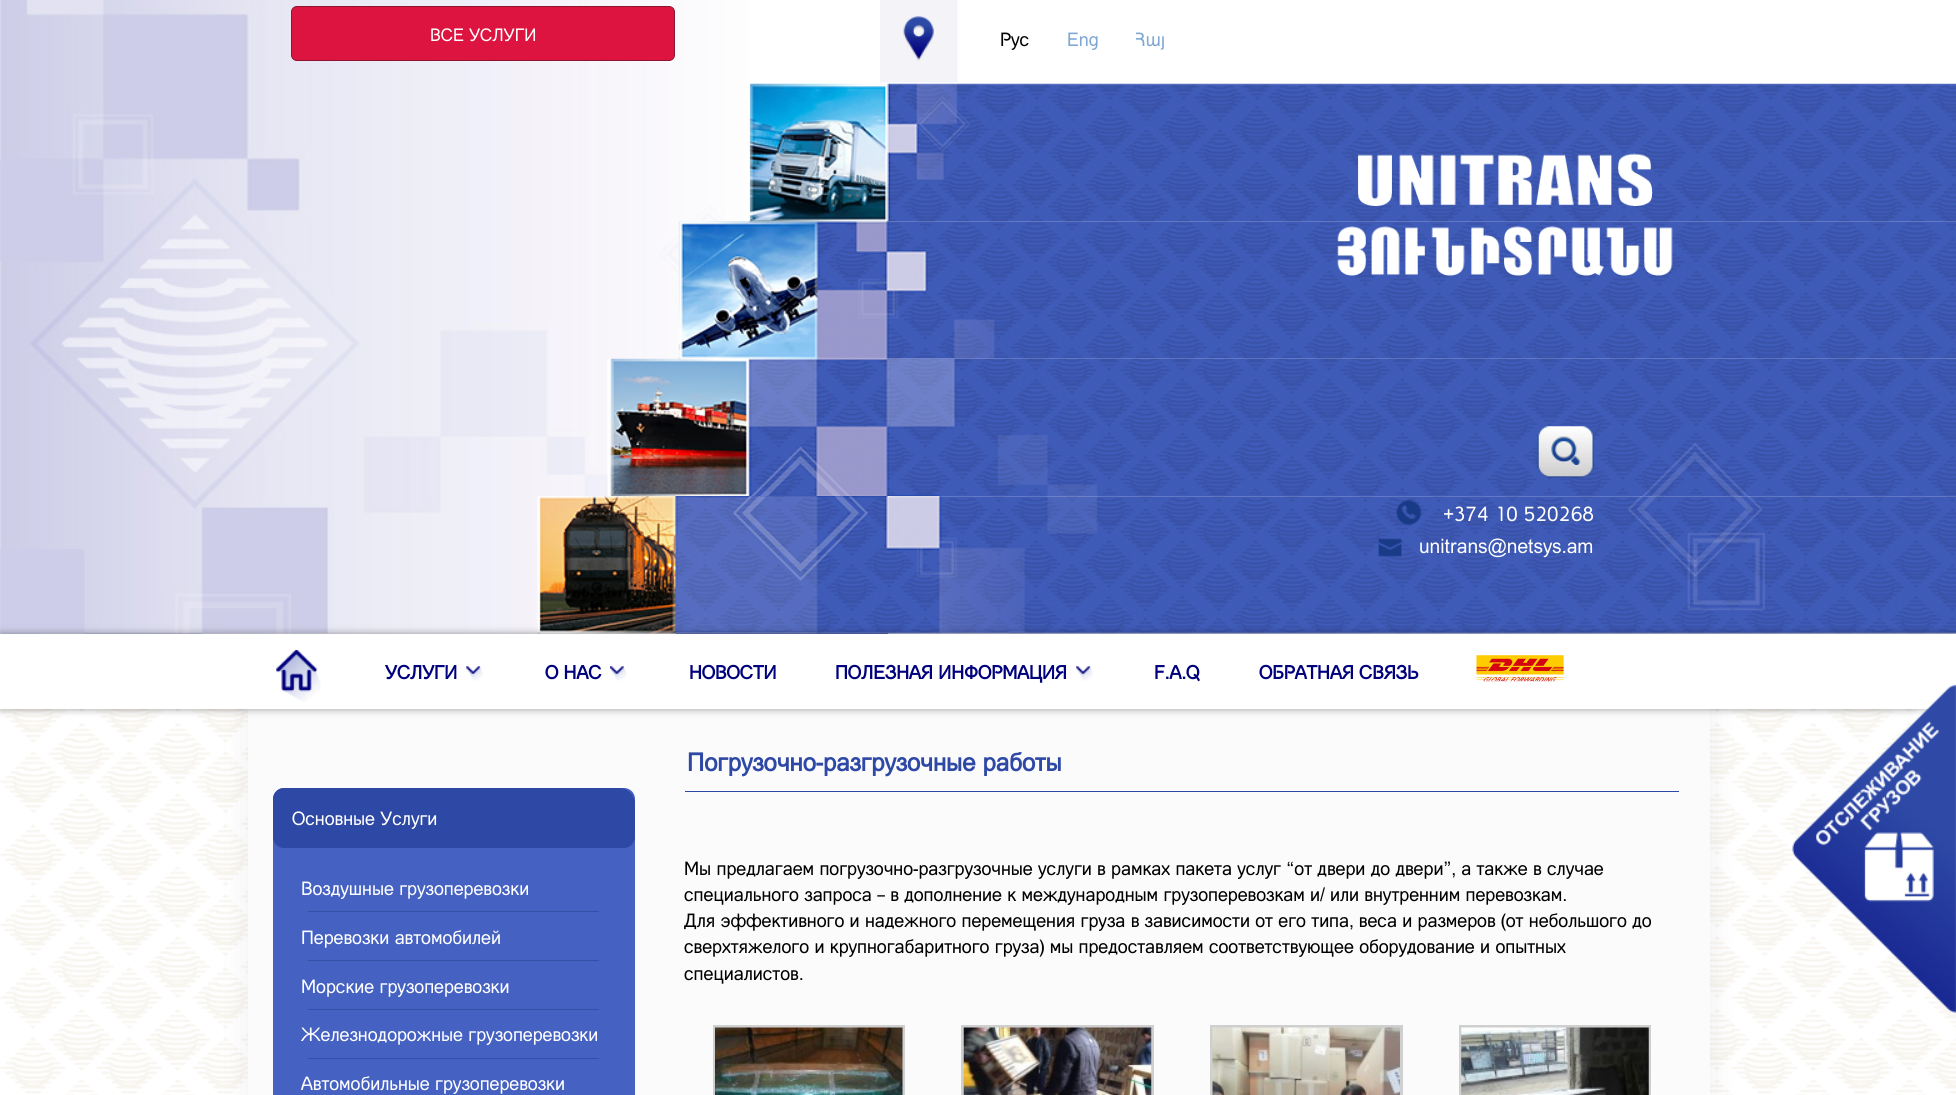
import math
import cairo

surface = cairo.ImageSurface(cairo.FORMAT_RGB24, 1956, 1095)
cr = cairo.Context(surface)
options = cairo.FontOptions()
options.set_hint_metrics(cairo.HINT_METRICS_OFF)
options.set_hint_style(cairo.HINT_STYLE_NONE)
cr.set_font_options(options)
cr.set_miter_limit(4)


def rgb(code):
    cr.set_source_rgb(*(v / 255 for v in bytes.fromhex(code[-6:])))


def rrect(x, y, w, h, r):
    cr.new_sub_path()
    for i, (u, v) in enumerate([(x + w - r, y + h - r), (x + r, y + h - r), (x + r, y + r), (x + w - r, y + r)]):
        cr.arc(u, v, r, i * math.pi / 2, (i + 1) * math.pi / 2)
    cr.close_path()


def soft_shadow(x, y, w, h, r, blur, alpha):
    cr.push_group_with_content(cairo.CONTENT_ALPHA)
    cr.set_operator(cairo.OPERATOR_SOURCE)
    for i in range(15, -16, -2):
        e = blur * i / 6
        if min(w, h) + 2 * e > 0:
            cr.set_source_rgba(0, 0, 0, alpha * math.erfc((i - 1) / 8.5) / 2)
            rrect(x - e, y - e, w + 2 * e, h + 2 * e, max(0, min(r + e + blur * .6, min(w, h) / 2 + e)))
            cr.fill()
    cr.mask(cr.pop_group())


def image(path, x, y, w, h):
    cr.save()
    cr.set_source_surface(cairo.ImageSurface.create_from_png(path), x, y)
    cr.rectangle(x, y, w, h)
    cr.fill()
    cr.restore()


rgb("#ffffff")
cr.paint()
image("img/1.png", 0, 709, 1956, 386)
image("img/2.png", 0, 0, 750, 634)
rgb("#de1440")
rrect(291.5, 6.5, 383, 54, 5.5)
cr.fill_preserve()
rgb("#8d152f")
cr.set_line_width(1)
cr.stroke()
image("img/3.png", 880, 0, 78, 83)
image("img/4.png", 749, 83, 1207, 139)
image("img/5.png", 678, 221, 1278, 138)
image("img/6.png", 607, 358, 1349, 139)
rgb("#2e48a5")
cr.rectangle(676, 496, 212, 138)
cr.fill()
rgb("#ffffff")
cr.rectangle(888, 496, 4, 1)
cr.fill()
image("img/7.png", 537, 496, 1419, 138)
image("img/8.png", 1337, 153, 336, 123)
image("img/9.png", 1537, 426, 57, 52)
image("img/10.png", 1396, 500, 26, 25)
image("img/11.png", 1378, 538, 24, 19)
rgb("#000000")
soft_shadow(248, 691, 1462, 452, 0, 16, 0.07)
rgb("#fbfbfb")
cr.rectangle(248, 709, 1462, 386)
cr.fill()
rgb("#000000")
soft_shadow(0, 634, 1956, 75, 0, 4, 0.4)
rgb("#ffffff")
cr.rectangle(0, 634, 1956, 75)
cr.fill()
image("img/12.png", 1792, 684, 164, 329)
image("img/13.png", 276, 650, 45, 52)
image("img/14.png", 466, 666, 17, 15)
image("img/15.png", 610, 666, 17, 15)
image("img/14.png", 1076, 666, 17, 15)
image("img/16.png", 1476, 655, 88, 27)
rgb("#4561c2")
rrect(273, 788, 362, 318, 11)
cr.fill()
rgb("#2d48a5")
cr.new_path()
cr.move_to(284, 788)
cr.line_to(619, 788)
cr.curve_to(628, 788, 635, 795, 635, 804)
cr.line_to(635, 837)
cr.curve_to(635, 843, 630, 848, 624, 848)
cr.line_to(284, 848)
cr.curve_to(278, 848, 273, 843, 273, 837)
cr.line_to(273, 799)
cr.curve_to(273, 793, 278, 788, 284, 788)
cr.close_path()
cr.fill()
for x, y, w, h, color in [
    (308, 911, 291, 1, "#334fa7"),
    (308, 960, 291, 1, "#334fa7"),
    (308, 1009, 291, 1, "#334fa7"),
    (308, 1058, 291, 1, "#334fa7"),
    (685, 791, 994, 1, "#2d48a5"),
]:
    rgb(color)
    cr.rectangle(x, y, w, h)
    cr.fill()
cr.rectangle(714.5, 1026.5, 189, 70)
rgb("#cfcfcf")
cr.set_line_width(3)
cr.stroke()
image("img/17.png", 715, 1027, 188, 68)
cr.rectangle(962.5, 1026.5, 190, 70)
cr.stroke()
image("img/18.png", 963, 1027, 189, 68)
cr.rectangle(1211.5, 1026.5, 190, 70)
cr.stroke()
image("img/19.png", 1212, 1027, 188, 68)
cr.rectangle(1460.5, 1026.5, 189, 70)
cr.stroke()
image("img/20.png", 1461, 1027, 188, 68)
cr.select_font_face("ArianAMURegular")
cr.set_font_size(17.5)
rgb("#ffffff")
cr.move_to(430, 41)
cr.show_text("ВСЕ УСЛУГИ")
cr.set_font_size(18.75)
rgb("#000000")
cr.move_to(1000, 46)
cr.show_text("Рус")
rgb("#7da7d2")
cr.move_to(1067, 46)
cr.show_text("Eng")
cr.move_to(1135, 46)
cr.show_text("Հայ")
cr.set_font_size(20)
rgb("#ffffff")
cr.move_to(1443, 521)
cr.show_text("+374 10 520268")
cr.move_to(1419, 553)
cr.show_text("unitrans@netsys.am")
cr.select_font_face("ArianAMURegular", cairo.FONT_SLANT_NORMAL, cairo.FONT_WEIGHT_BOLD)
cr.set_font_size(18.75)
rgb("#00007d")
for x, y, s in [
    (385, 679, "УСЛУГИ"),
    (545, 679, "О НАС"),
    (689, 679, "НОВОСТИ"),
    (835, 679, "ПОЛЕЗНАЯ ИНФОРМАЦИЯ"),
    (1154, 679, "F.A.Q"),
    (1259, 679, "ОБРАТНАЯ СВЯЗЬ"),
]:
    cr.move_to(x, y)
    cr.show_text(s)
cr.select_font_face("ArianAMURegular")
rgb("#ffffff")
for x, y, s in [
    (292, 825, "Основные Услуги"),
    (301, 895, "Воздушные грузоперевозки"),
    (301, 944, "Перевозки aвтомобилей"),
    (301, 993, "Морские грузоперевозки"),
    (301, 1041, "Железнодорожные грузоперевозки"),
    (301, 1090, "Автомобильные грузоперевозки"),
]:
    cr.move_to(x, y)
    cr.show_text(s)
cr.select_font_face("ArianAMURegular", cairo.FONT_SLANT_NORMAL, cairo.FONT_WEIGHT_BOLD)
cr.set_font_size(25)
rgb("#2d48a5")
cr.move_to(687, 771)
cr.show_text("Погрузочно-разгрузочные работы")
cr.select_font_face("ArianAMURegular")
cr.set_font_size(18.75)
rgb("#000000")
for x, y, s in [
    (684, 875, "Мы предлагаем погрузочно-разгрузочные услуги в рамках пакета услуг “от двери до двери”, а также в случае"),
    (684, 901, "специального запроса – в дополнение к международным грузоперевозкам и/ или внутренним перевозкам."),
    (684, 927, "Для эффективного и надежного перемещения груза в зависимости от его типа, веса и размеров (от небольшого до"),
    (684, 953, "сверхтяжелого и крупногабаритного груза) мы предоставляем соответствующее оборудование и опытных"),
    (684, 980, "специалистов."),
]:
    cr.move_to(x, y)
    cr.show_text(s)
surface.write_to_png("page.png")
